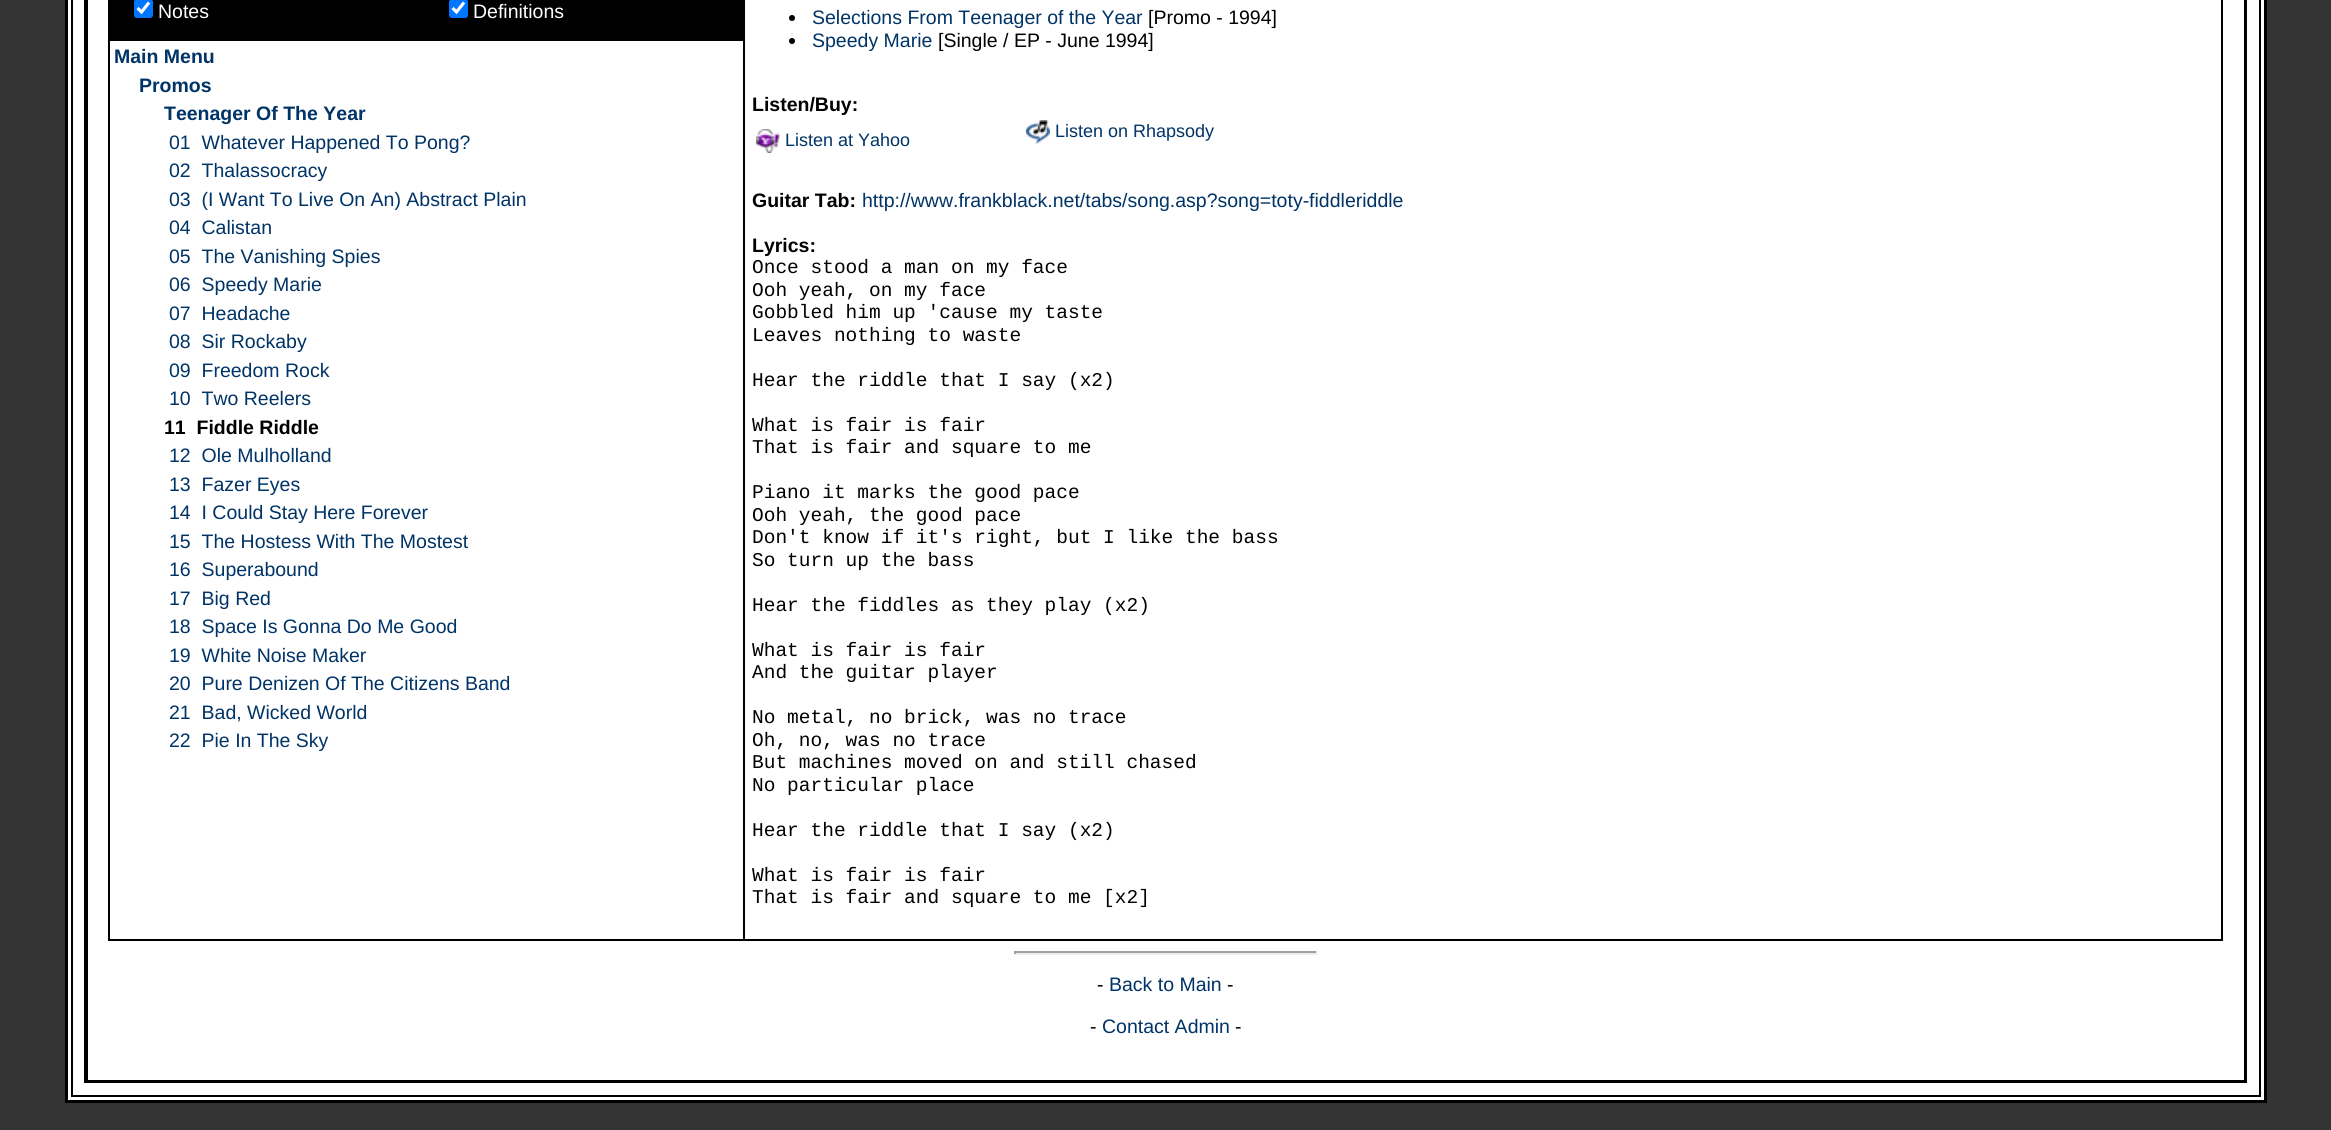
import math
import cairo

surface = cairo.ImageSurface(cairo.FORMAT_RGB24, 2331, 1130)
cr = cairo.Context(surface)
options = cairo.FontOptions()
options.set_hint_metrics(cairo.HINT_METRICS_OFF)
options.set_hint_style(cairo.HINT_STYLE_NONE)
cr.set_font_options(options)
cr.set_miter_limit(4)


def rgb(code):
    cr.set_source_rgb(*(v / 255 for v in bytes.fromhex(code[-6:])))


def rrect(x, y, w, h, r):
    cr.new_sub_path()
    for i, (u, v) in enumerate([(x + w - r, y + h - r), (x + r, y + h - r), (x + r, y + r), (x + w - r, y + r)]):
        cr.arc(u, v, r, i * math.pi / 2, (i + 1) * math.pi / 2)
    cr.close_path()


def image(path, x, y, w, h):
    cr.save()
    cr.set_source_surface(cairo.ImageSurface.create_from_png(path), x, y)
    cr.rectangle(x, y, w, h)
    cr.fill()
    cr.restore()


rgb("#333333")
cr.paint()
rgb("#ffffff")
cr.rectangle(66.5, -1.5, 2199, 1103)
cr.fill_preserve()
rgb("#000000")
cr.set_line_width(3)
cr.stroke()
cr.rectangle(72, -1, 2188, 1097)
cr.set_line_width(2)
cr.stroke()
cr.rectangle(85, -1, 2161, 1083)
cr.stroke()
cr.rectangle(87, -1, 2158, 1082)
cr.stroke()
cr.rectangle(109, -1, 2113, 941)
cr.stroke()
cr.rectangle(110, 0, 633, 41)
cr.fill()
rgb("#0075ff")
rrect(134, -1, 19, 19, 3)
cr.fill()
cr.new_path()
cr.move_to(137.5, 8)
cr.line_to(141.5, 12)
cr.line_to(149, 2.5)
rgb("#ffffff")
cr.set_line_width(3.1)
cr.stroke()
rgb("#0075ff")
rrect(449, -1, 19, 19, 3)
cr.fill()
cr.new_path()
cr.move_to(452.5, 8)
cr.line_to(456.5, 12)
cr.line_to(464, 2.5)
rgb("#ffffff")
cr.stroke()
rgb("#000000")
cr.rectangle(743, 0, 2, 939)
cr.fill()
cr.arc(792, 18, 3, 0, 2 * math.pi)
cr.fill()
cr.arc(792, 41, 3, 0, 2 * math.pi)
cr.fill()
image("img/1.png", 756, 129, 24, 24)
image("img/2.png", 1026, 120, 24, 24)
for x, y, w, h, color in [
    (1014, 951, 303, 2, "#9f9f9f"),
    (1316, 951, 2, 3, "#eeeeee"),
    (1014, 953, 303, 2, "#eeeeee"),
    (1014, 951, 2, 3, "#9f9f9f"),
]:
    rgb(color)
    cr.rectangle(x, y, w, h)
    cr.fill()
cr.select_font_face("Liberation Sans")
cr.set_font_size(19.5)
rgb("#ffffff")
cr.move_to(158, 18)
cr.show_text("Notes")
cr.move_to(473, 18)
cr.show_text("Definitions")
cr.select_font_face("Liberation Sans", cairo.FONT_SLANT_NORMAL, cairo.FONT_WEIGHT_BOLD)
rgb("#003366")
for x, y, s in [
    (114, 63, "Main Menu"),
    (139, 92, "Promos"),
    (164, 120, "Teenager Of The Year"),
]:
    cr.move_to(x, y)
    cr.show_text(s)
cr.select_font_face("Liberation Sans")
for x, y, s in [
    (169, 149, "01  Whatever Happened To Pong?"),
    (169, 177, "02  Thalassocracy"),
    (169, 206, "03  (I Want To Live On An) Abstract Plain"),
    (169, 234, "04  Calistan"),
    (169, 263, "05  The Vanishing Spies"),
    (169, 291, "06  Speedy Marie"),
    (169, 320, "07  Headache"),
    (169, 348, "08  Sir Rockaby"),
    (169, 377, "09  Freedom Rock"),
    (169, 405, "10  Two Reelers"),
]:
    cr.move_to(x, y)
    cr.show_text(s)
cr.select_font_face("Liberation Sans", cairo.FONT_SLANT_NORMAL, cairo.FONT_WEIGHT_BOLD)
rgb("#000000")
cr.move_to(164, 434)
cr.show_text("11  Fiddle Riddle")
cr.select_font_face("Liberation Sans")
rgb("#003366")
for x, y, s in [
    (169, 462, "12  Ole Mulholland"),
    (169, 491, "13  Fazer Eyes"),
    (169, 519, "14  I Could Stay Here Forever"),
    (169, 548, "15  The Hostess With The Mostest"),
    (169, 576, "16  Superabound"),
    (169, 605, "17  Big Red"),
    (169, 633, "18  Space Is Gonna Do Me Good"),
    (169, 662, "19  White Noise Maker"),
    (169, 690, "20  Pure Denizen Of The Citizens Band"),
    (169, 719, "21  Bad, Wicked World"),
    (169, 747, "22  Pie In The Sky"),
    (812, 24, "Selections From Teenager of the Year"),
]:
    cr.move_to(x, y)
    cr.show_text(s)
rgb("#000000")
cr.move_to(1148, 24)
cr.show_text("[Promo - 1994]")
rgb("#003366")
cr.move_to(812, 47)
cr.show_text("Speedy Marie")
rgb("#000000")
cr.move_to(938, 47)
cr.show_text("[Single / EP - June 1994]")
cr.select_font_face("Liberation Sans", cairo.FONT_SLANT_NORMAL, cairo.FONT_WEIGHT_BOLD)
cr.move_to(752, 111)
cr.show_text("Listen/Buy:")
cr.select_font_face("Liberation Sans")
cr.set_font_size(18)
rgb("#003366")
cr.move_to(785, 146)
cr.show_text("Listen at Yahoo")
cr.move_to(1055, 137)
cr.show_text("Listen on Rhapsody")
cr.select_font_face("Liberation Sans", cairo.FONT_SLANT_NORMAL, cairo.FONT_WEIGHT_BOLD)
cr.set_font_size(19.5)
rgb("#000000")
cr.move_to(752, 207)
cr.show_text("Guitar Tab:")
cr.select_font_face("Liberation Sans")
rgb("#003366")
cr.move_to(862, 207)
cr.show_text("http://www.frankblack.net/tabs/song.asp?song=toty-fiddleriddle")
cr.select_font_face("Liberation Sans", cairo.FONT_SLANT_NORMAL, cairo.FONT_WEIGHT_BOLD)
rgb("#000000")
cr.move_to(752, 252)
cr.show_text("Lyrics:")
cr.select_font_face("Liberation Mono")
for x, y, s in [
    (752, 273, "Once stood a man on my face"),
    (752, 296, "Ooh yeah, on my face"),
    (752, 318, "Gobbled him up 'cause my taste"),
    (752, 341, "Leaves nothing to waste"),
    (752, 386, "Hear the riddle that I say (x2)"),
    (752, 431, "What is fair is fair"),
    (752, 453, "That is fair and square to me"),
    (752, 498, "Piano it marks the good pace"),
    (752, 521, "Ooh yeah, the good pace"),
    (752, 543, "Don't know if it's right, but I like the bass"),
    (752, 566, "So turn up the bass"),
    (752, 611, "Hear the fiddles as they play (x2)"),
    (752, 656, "What is fair is fair"),
    (752, 678, "And the guitar player"),
    (752, 723, "No metal, no brick, was no trace"),
    (752, 746, "Oh, no, was no trace"),
    (752, 768, "But machines moved on and still chased"),
    (752, 791, "No particular place"),
    (752, 836, "Hear the riddle that I say (x2)"),
    (752, 881, "What is fair is fair"),
    (752, 903, "That is fair and square to me [x2]"),
]:
    cr.move_to(x, y)
    cr.show_text(s)
cr.select_font_face("Liberation Sans")
cr.move_to(1097, 991)
cr.show_text("-")
rgb("#003366")
cr.move_to(1109, 991)
cr.show_text("Back to Main")
rgb("#000000")
cr.move_to(1227, 991)
cr.show_text("-")
cr.move_to(1090, 1033)
cr.show_text("-")
rgb("#003366")
cr.move_to(1102, 1033)
cr.show_text("Contact Admin")
rgb("#000000")
cr.move_to(1235, 1033)
cr.show_text("-")
surface.write_to_png("page.png")
